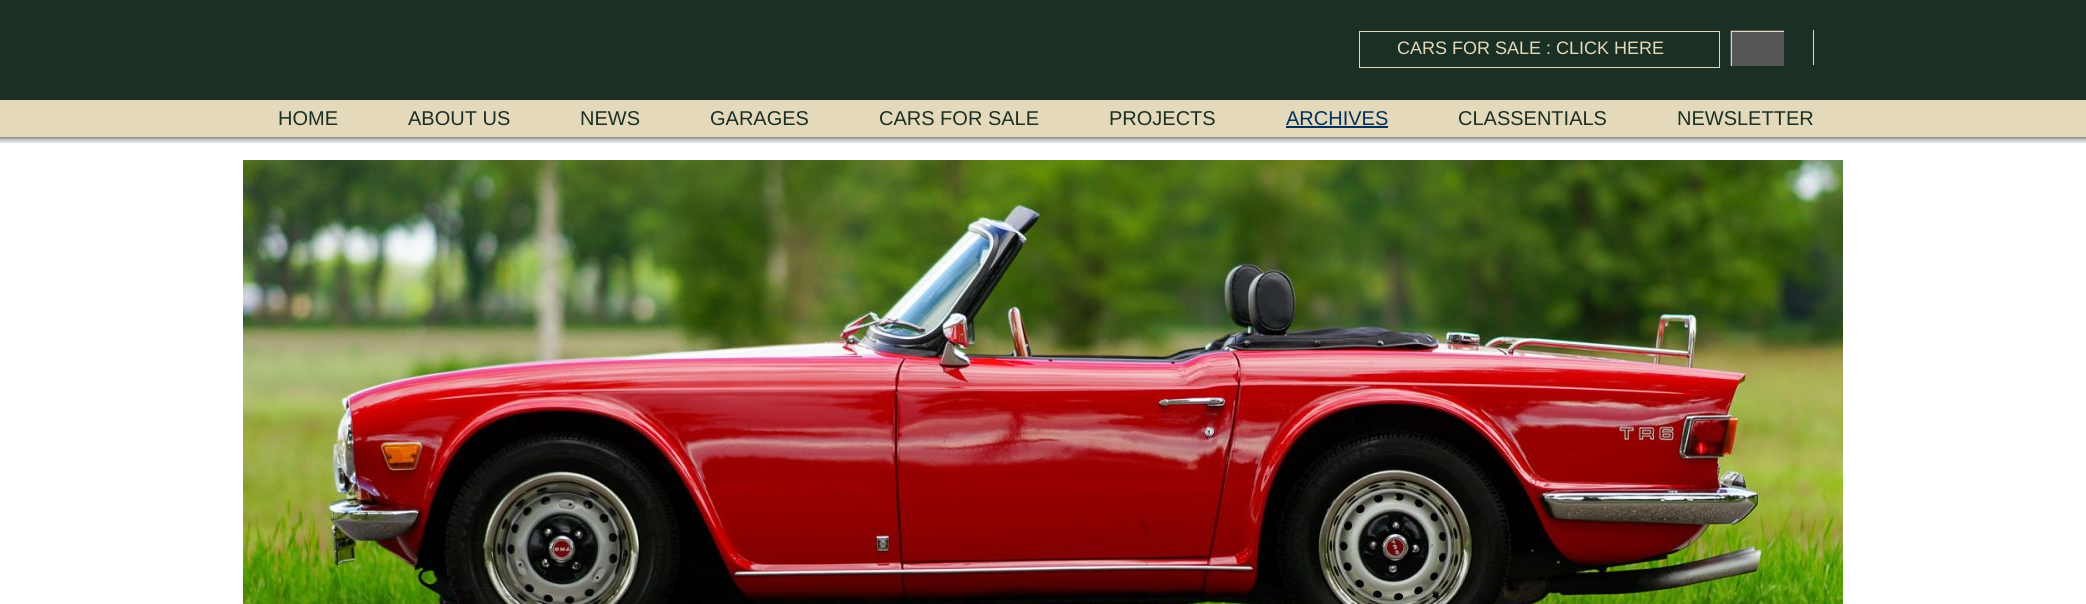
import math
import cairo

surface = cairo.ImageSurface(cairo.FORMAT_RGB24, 2086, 604)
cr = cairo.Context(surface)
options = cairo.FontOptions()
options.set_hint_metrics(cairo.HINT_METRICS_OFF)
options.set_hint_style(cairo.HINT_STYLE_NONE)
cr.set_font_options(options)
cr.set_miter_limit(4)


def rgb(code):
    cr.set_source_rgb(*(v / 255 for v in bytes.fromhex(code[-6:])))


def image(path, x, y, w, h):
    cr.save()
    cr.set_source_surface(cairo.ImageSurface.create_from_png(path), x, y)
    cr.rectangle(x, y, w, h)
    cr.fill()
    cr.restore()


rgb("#ffffff")
cr.paint()
rgb("#1a3024")
cr.rectangle(0, 0, 2086, 100)
cr.fill()
cr.rectangle(1359.5, 31.5, 360, 36)
rgb("#e5d9bb")
cr.set_line_width(1)
cr.stroke()
rgb("#555555")
cr.rectangle(1730, 30, 54, 36)
cr.fill()
cr.save()
cr.rectangle(1730, 30, 54, 36)
cr.clip()
cr.rectangle(1731.5, 31.5, 53, 35)
rgb("#e5d9bb")
cr.stroke()
cr.restore()
for x, y, w, h, color in [
    (1813, 30, 1, 35, "#e5d9bb"),
    (0, 100, 2086, 37, "#e5d9bb"),
    (1286, 126, 102, 2, "#00305c"),
]:
    rgb(color)
    cr.rectangle(x, y, w, h)
    cr.fill()
image("img/1.png", 0, 137, 2086, 6)
image("img/2.png", 243, 160, 1600, 444)
cr.select_font_face("Liberation Sans")
cr.set_font_size(18)
rgb("#e5d9bb")
cr.move_to(1397, 54)
cr.show_text("CARS FOR SALE : CLICK HERE")
cr.set_font_size(20)
rgb("#1a3024")
for x, y, s in [
    (278, 125, "HOME"),
    (408, 125, "ABOUT US"),
    (580, 125, "NEWS"),
    (710, 125, "GARAGES"),
    (879, 125, "CARS FOR SALE"),
    (1109, 125, "PROJECTS"),
]:
    cr.move_to(x, y)
    cr.show_text(s)
rgb("#00305c")
cr.move_to(1286, 125)
cr.show_text("ARCHIVES")
rgb("#1a3024")
cr.move_to(1458, 125)
cr.show_text("CLASSENTIALS")
cr.move_to(1677, 125)
cr.show_text("NEWSLETTER")
surface.write_to_png("page.png")
